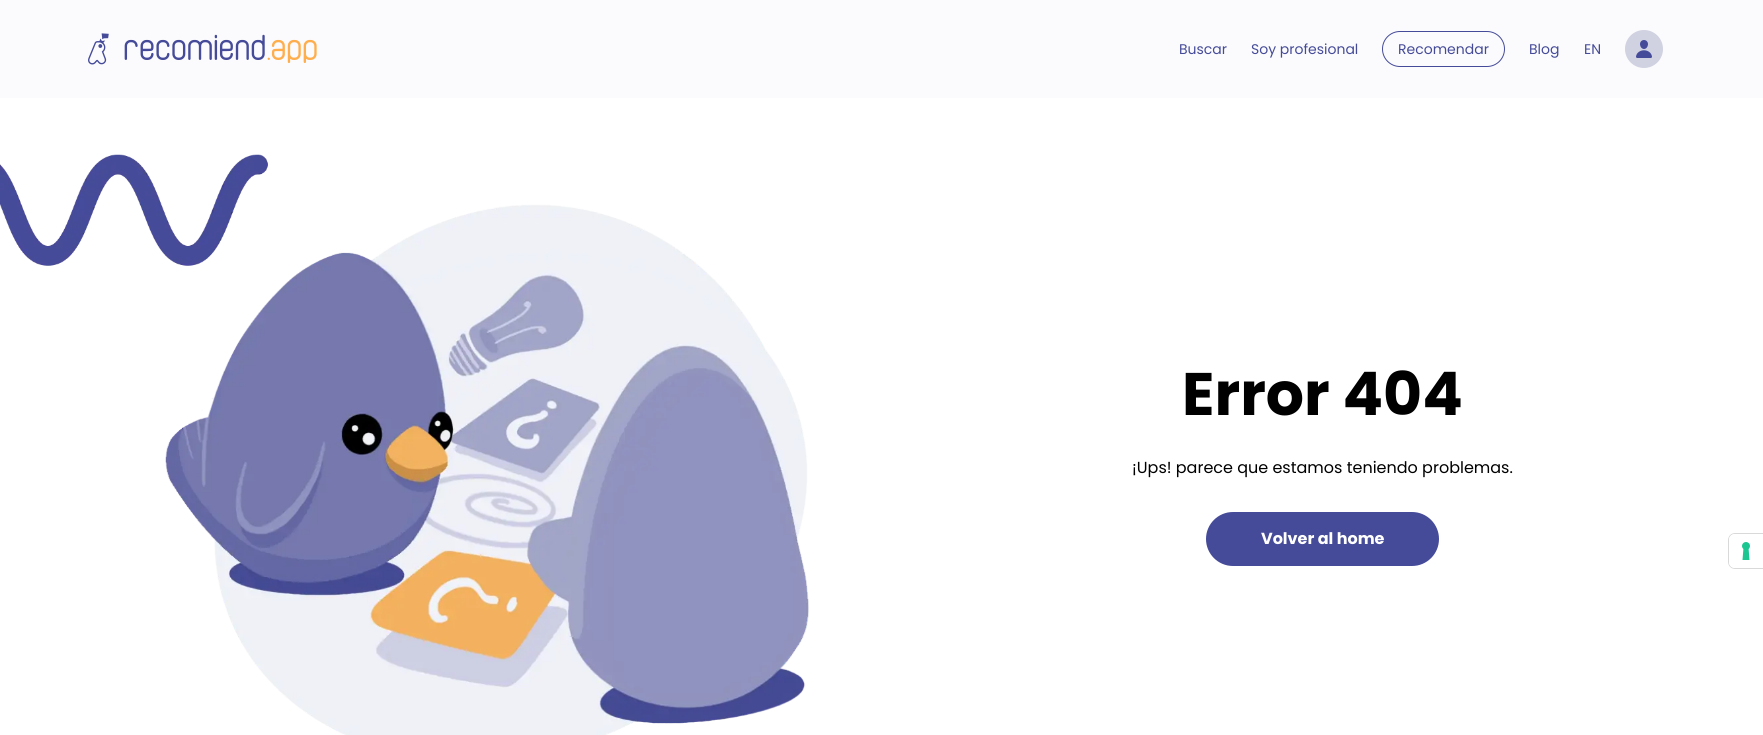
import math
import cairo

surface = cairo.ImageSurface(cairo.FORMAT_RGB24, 1763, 735)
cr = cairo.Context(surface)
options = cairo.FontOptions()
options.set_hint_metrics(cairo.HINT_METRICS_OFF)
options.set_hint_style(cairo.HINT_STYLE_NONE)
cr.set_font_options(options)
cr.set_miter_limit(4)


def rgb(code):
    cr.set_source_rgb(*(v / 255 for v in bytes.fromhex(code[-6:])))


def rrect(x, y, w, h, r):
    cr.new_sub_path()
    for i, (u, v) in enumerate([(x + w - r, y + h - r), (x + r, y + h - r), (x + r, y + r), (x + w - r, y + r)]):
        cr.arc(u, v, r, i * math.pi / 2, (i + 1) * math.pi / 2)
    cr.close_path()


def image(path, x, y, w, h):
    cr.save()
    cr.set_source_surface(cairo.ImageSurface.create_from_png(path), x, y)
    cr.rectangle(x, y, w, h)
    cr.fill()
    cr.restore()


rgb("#ffffff")
cr.paint()
rgb("#fbfbfd")
cr.rectangle(0, 0, 1763, 98)
cr.fill()
image("img/1.png", 88, 33, 229, 32)
rrect(1382.5, 31.5, 122, 35, 17.5)
rgb("#454b99")
cr.set_line_width(1)
cr.stroke()
image("img/2.png", 1625, 30, 38, 38)
image("img/3.png", 0, 154, 809, 581)
rrect(1206, 512, 233, 54, 27)
cr.fill()
cr.new_path()
cr.move_to(1735, 533.5)
cr.line_to(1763.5, 533.5)
cr.line_to(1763.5, 568.5)
cr.line_to(1735, 568.5)
cr.curve_to(1731.5, 568.5, 1728.5, 565.5, 1728.5, 562)
cr.line_to(1728.5, 540)
cr.curve_to(1728.5, 536.5, 1731.5, 533.5, 1735, 533.5)
cr.close_path()
rgb("#d9d9d9")
cr.stroke()
rgb("#ffffff")
cr.new_path()
cr.move_to(1735, 534)
cr.line_to(1763, 534)
cr.line_to(1763, 568)
cr.line_to(1735, 568)
cr.curve_to(1731.5, 568, 1729, 565.5, 1729, 562)
cr.line_to(1729, 540)
cr.curve_to(1729, 536.5, 1731.5, 534, 1735, 534)
cr.close_path()
cr.fill()
image("img/4.png", 1742, 542, 8, 18)
cr.select_font_face("Poppins")
cr.set_font_size(14)
rgb("#454b99")
for x, y, s in [
    (1179, 54, "Buscar"),
    (1251, 54, "Soy profesional"),
    (1398, 54, "Recomendar"),
    (1529, 54, "Blog"),
    (1584, 54, "EN"),
]:
    cr.move_to(x, y)
    cr.show_text(s)
cr.select_font_face("Poppins", cairo.FONT_SLANT_NORMAL, cairo.FONT_WEIGHT_BOLD)
cr.set_font_size(60)
rgb("#000000")
cr.move_to(1182, 415)
cr.show_text("Error 404")
cr.select_font_face("Poppins")
cr.set_font_size(16)
cr.move_to(1132, 473)
cr.show_text("¡Ups! parece que estamos teniendo problemas.")
cr.select_font_face("Poppins", cairo.FONT_SLANT_NORMAL, cairo.FONT_WEIGHT_BOLD)
rgb("#ffffff")
cr.move_to(1261, 544)
cr.show_text("Volver al home")
surface.write_to_png("page.png")
